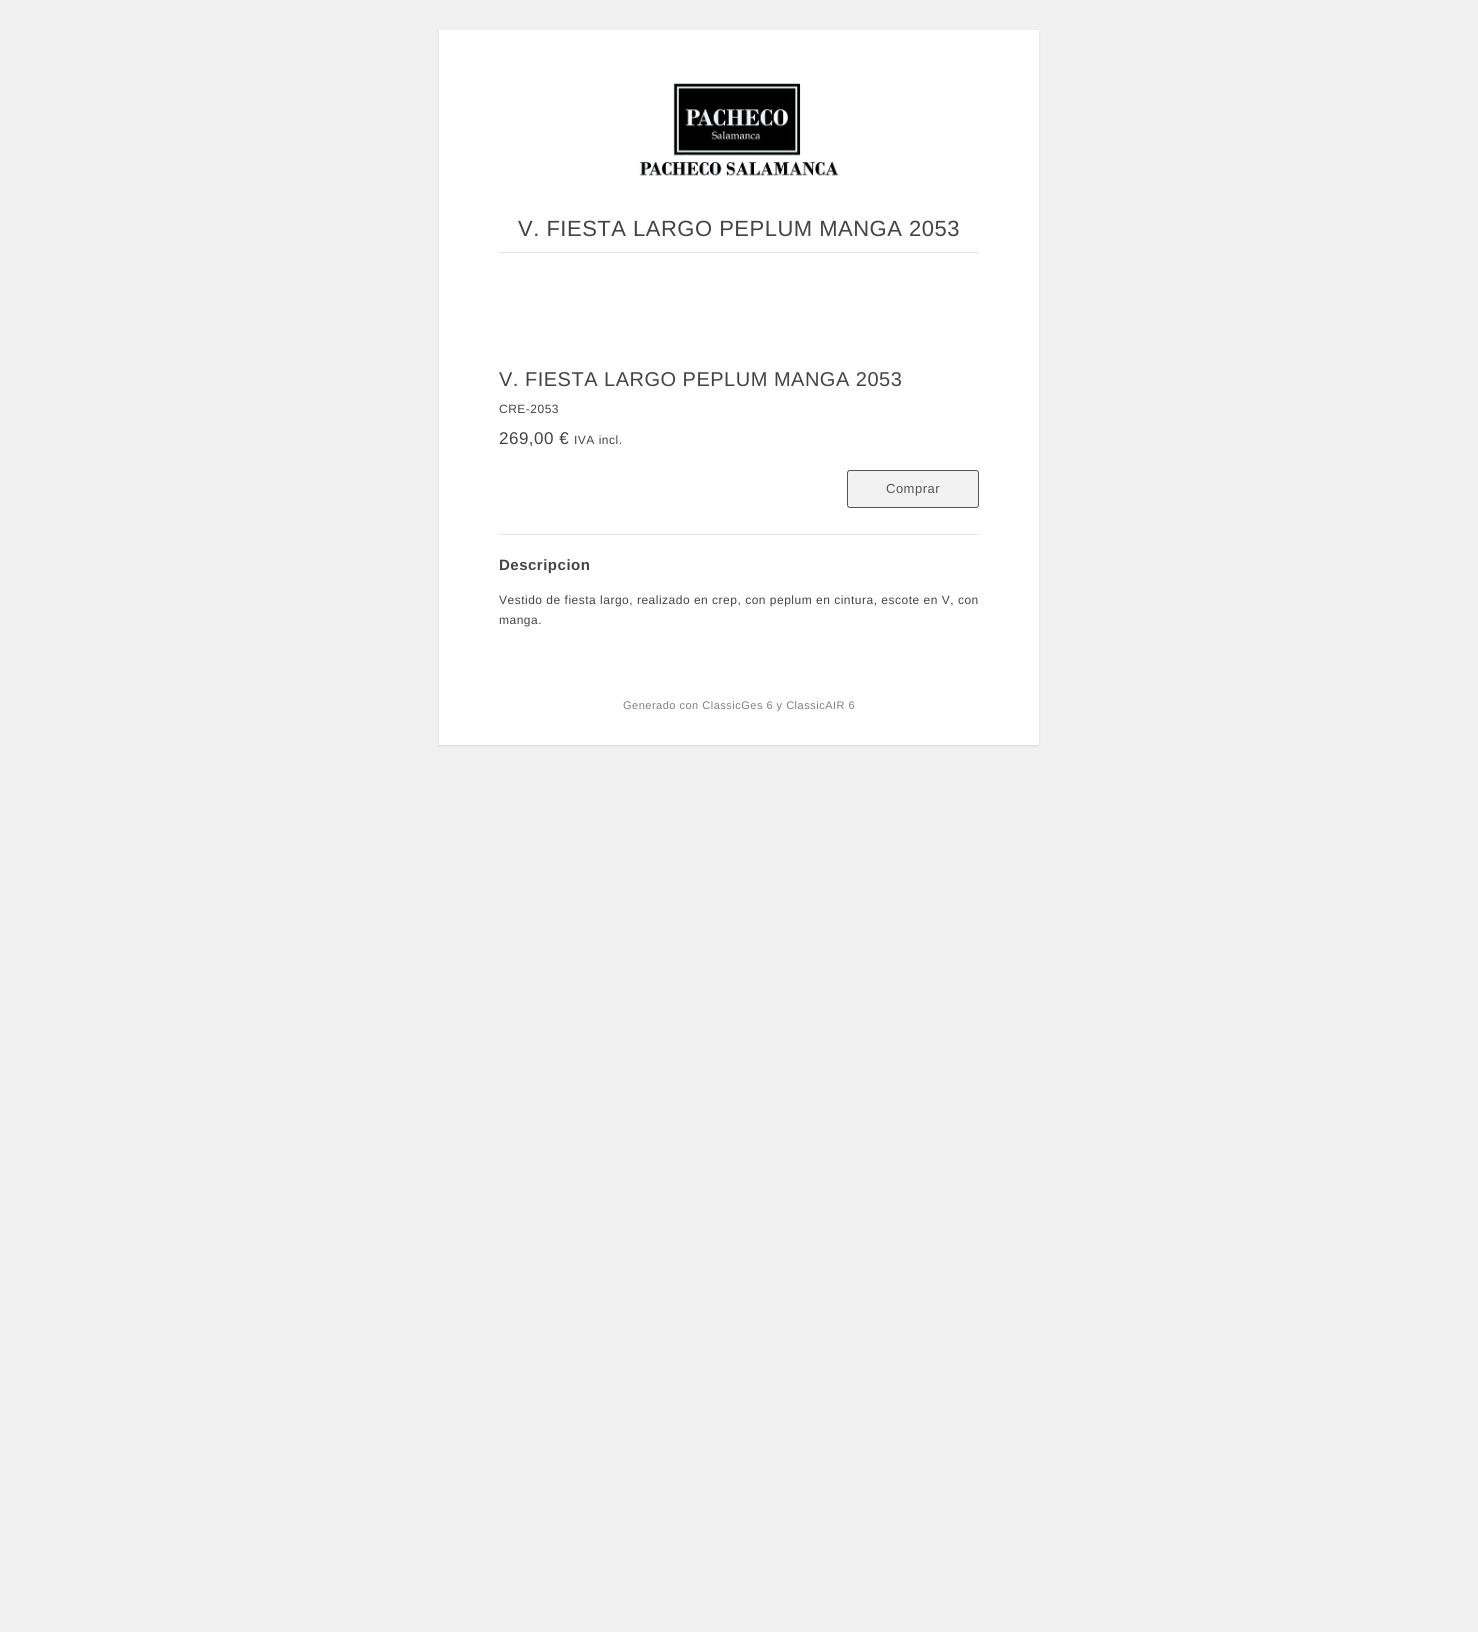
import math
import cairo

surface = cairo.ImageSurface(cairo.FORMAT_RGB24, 1478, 1632)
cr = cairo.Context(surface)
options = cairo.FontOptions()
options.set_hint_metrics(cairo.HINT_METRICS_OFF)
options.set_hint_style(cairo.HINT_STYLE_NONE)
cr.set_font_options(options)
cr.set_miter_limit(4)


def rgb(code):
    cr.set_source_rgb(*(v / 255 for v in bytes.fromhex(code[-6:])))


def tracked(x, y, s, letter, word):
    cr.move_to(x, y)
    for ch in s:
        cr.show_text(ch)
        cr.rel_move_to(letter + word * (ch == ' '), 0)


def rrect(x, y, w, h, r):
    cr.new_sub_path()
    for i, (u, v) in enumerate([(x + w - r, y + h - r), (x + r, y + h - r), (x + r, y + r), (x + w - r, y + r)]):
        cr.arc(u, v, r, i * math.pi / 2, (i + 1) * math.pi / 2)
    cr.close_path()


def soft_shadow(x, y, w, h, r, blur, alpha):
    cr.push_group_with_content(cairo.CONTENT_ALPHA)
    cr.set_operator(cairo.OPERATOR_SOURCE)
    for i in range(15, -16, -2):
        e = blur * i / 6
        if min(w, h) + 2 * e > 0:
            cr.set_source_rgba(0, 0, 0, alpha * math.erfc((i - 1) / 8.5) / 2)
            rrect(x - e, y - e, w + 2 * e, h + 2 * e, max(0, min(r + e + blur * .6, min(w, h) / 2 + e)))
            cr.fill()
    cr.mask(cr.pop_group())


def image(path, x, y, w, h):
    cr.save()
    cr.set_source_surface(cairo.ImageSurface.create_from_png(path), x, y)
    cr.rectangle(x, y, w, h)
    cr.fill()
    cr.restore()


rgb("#f1f1f1")
cr.paint()
rgb("#000000")
soft_shadow(439, 31, 600, 715, 0, 1, 0.1)
rgb("#ffffff")
cr.rectangle(439, 30, 600, 715)
cr.fill()
image("img/1.png", 639, 83, 200, 93)
rgb("#e2e2e2")
cr.rectangle(499, 252, 480, 1)
cr.fill()
cr.rectangle(499, 534, 480, 1)
cr.fill()
rgb("#f2f2f2")
rrect(847.5, 470.5, 131, 37, 2.5)
cr.fill_preserve()
rgb("#555555")
cr.set_line_width(1)
cr.stroke()
cr.select_font_face("Liberation Sans")
cr.set_font_size(22)
rgb("#444444")
tracked(518, 236, "V. FIESTA LARGO PEPLUM MANGA 2053", 0.5, 0)
cr.set_font_size(20)
tracked(499, 386, "V. FIESTA LARGO PEPLUM MANGA 2053", 0.5, 0)
cr.set_font_size(12)
tracked(499, 413, "CRE-2053", 0.5, 0)
cr.set_font_size(17)
tracked(499, 444, "269,00 €", 0.5, 0)
cr.set_font_size(12)
tracked(574, 444, "IVA incl.", 0.5, 0)
cr.set_font_size(13)
rgb("#555555")
tracked(886, 493, "Comprar", 0.5, 0)
cr.select_font_face("Liberation Sans", cairo.FONT_SLANT_NORMAL, cairo.FONT_WEIGHT_BOLD)
cr.set_font_size(15)
rgb("#444444")
tracked(499, 570, "Descripcion", 0.5, 0)
cr.select_font_face("Liberation Sans")
cr.set_font_size(12)
tracked(499, 604, "Vestido de fiesta largo, realizado en crep, con peplum en cintura, escote en V, con", 0.5, 0)
tracked(499, 624, "manga.", 0.5, 0)
cr.set_font_size(11)
rgb("#808080")
tracked(623, 709, "Generado con ClassicGes 6 y ClassicAIR 6", 0.5, 0)
surface.write_to_png("page.png")
